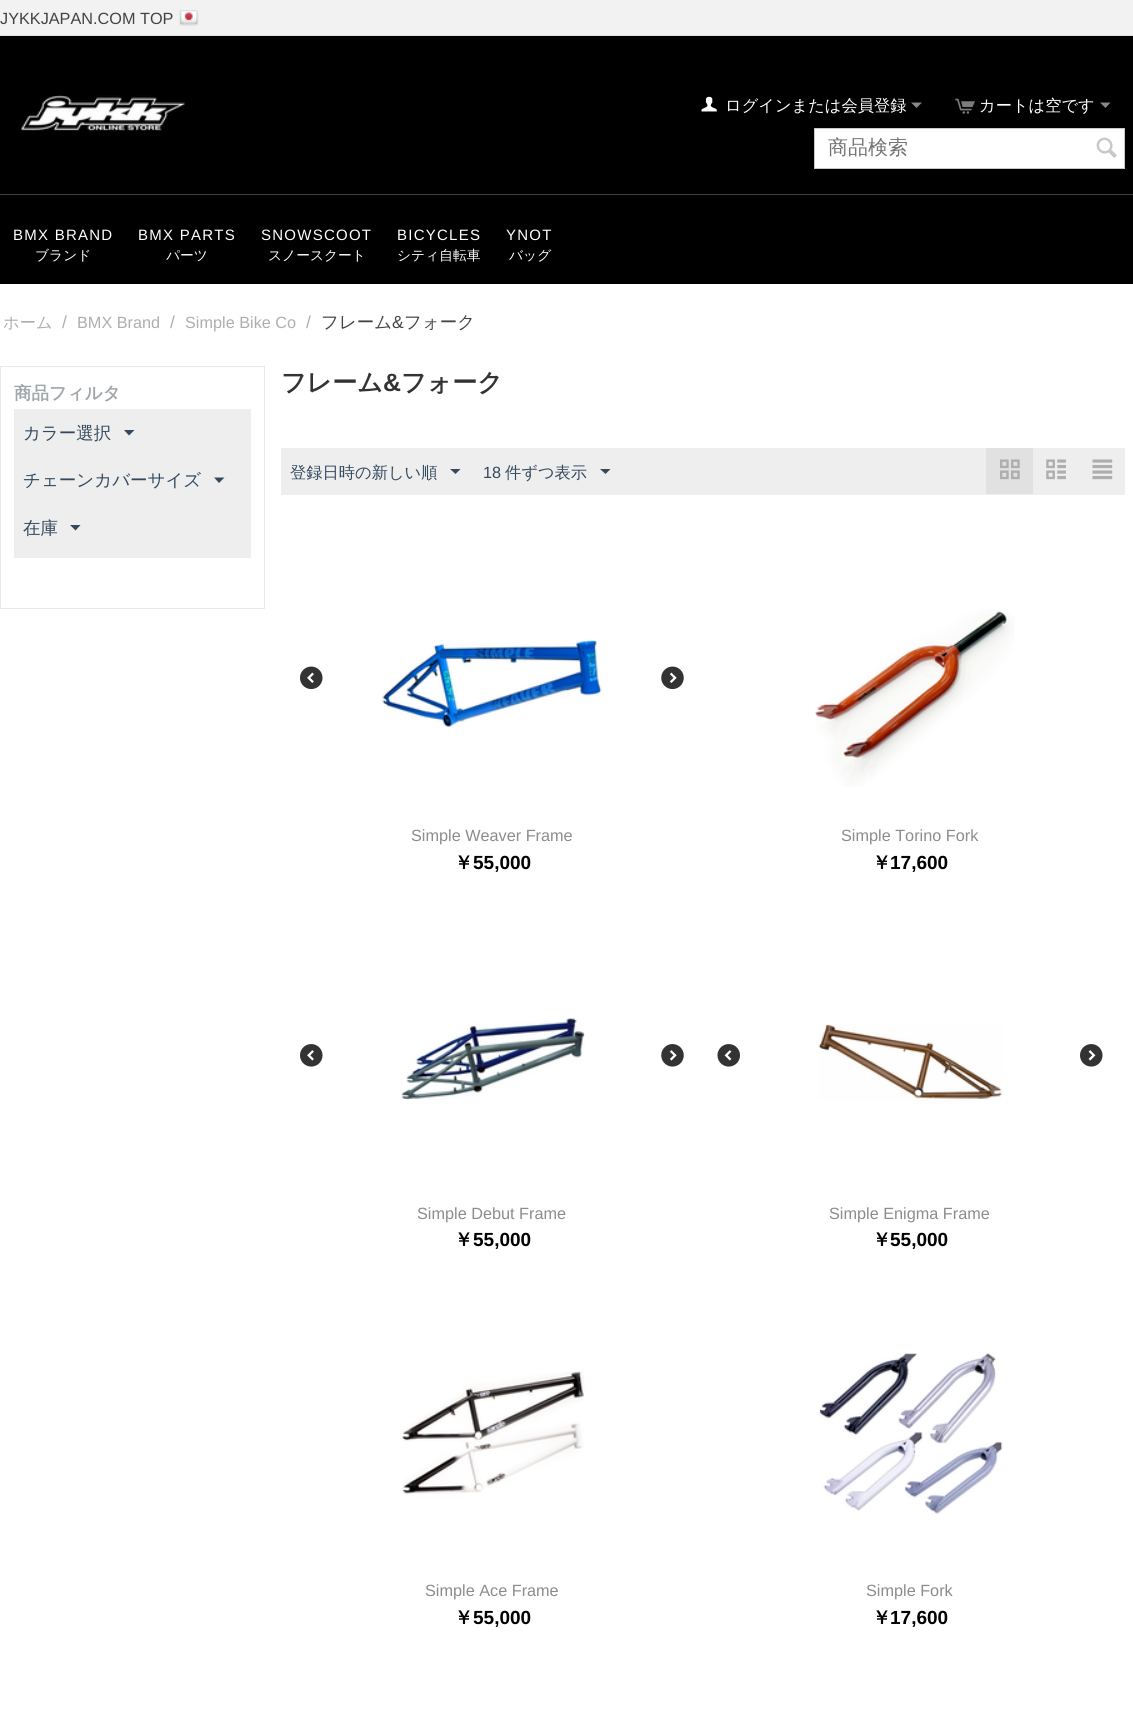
import math
import cairo

surface = cairo.ImageSurface(cairo.FORMAT_RGB24, 1133, 1715)
cr = cairo.Context(surface)
options = cairo.FontOptions()
options.set_hint_metrics(cairo.HINT_METRICS_OFF)
options.set_hint_style(cairo.HINT_STYLE_NONE)
cr.set_font_options(options)
cr.set_miter_limit(4)


def rgb(code):
    cr.set_source_rgb(*(v / 255 for v in bytes.fromhex(code[-6:])))


def tracked(x, y, s, letter, word):
    cr.move_to(x, y)
    for ch in s:
        cr.show_text(ch)
        cr.rel_move_to(letter + word * (ch == ' '), 0)


def image(path, x, y, w, h):
    cr.save()
    cr.set_source_surface(cairo.ImageSurface.create_from_png(path), x, y)
    cr.rectangle(x, y, w, h)
    cr.fill()
    cr.restore()


rgb("#ffffff")
cr.paint()
rgb("#f2f2f2")
cr.rectangle(0, 0, 1133, 35)
cr.fill()
rgb("#e1e1e1")
cr.rectangle(0, 35, 1133, 1)
cr.fill()
image("img/1.png", 179, 10, 20, 16)
rgb("#000000")
cr.rectangle(0, 36, 1133, 248)
cr.fill()
image("img/2.png", 21, 95, 164, 37)
image("img/3.png", 701, 96, 16, 16)
rgb("#888888")
cr.new_path()
cr.move_to(916.5, 108)
cr.line_to(911, 102.5)
cr.line_to(922, 102.5)
cr.close_path()
cr.fill()
image("img/4.png", 955, 98, 20, 16)
cr.new_path()
cr.move_to(1105.5, 108)
cr.line_to(1100, 102.5)
cr.line_to(1110.5, 102.5)
cr.close_path()
cr.fill()
rgb("#ffffff")
cr.rectangle(814.5, 128.5, 310, 40)
cr.fill_preserve()
rgb("#c8c8c8")
cr.set_line_width(1)
cr.stroke()
image("img/5.png", 1096, 137, 21, 21)
rgb("#3e3e3e")
cr.rectangle(0, 194, 1133, 1)
cr.fill()
cr.rectangle(0.5, 366.5, 264, 242)
rgb("#eae9e5")
cr.stroke()
rgb("#eeeeee")
cr.rectangle(14, 409, 237, 149)
cr.fill()
rgb("#34495e")
cr.new_path()
cr.move_to(129, 435.5)
cr.line_to(124, 430)
cr.line_to(134.5, 430)
cr.close_path()
cr.fill()
cr.new_path()
cr.move_to(219, 483)
cr.line_to(214, 477.5)
cr.line_to(224.5, 477.5)
cr.close_path()
cr.fill()
cr.new_path()
cr.move_to(75.5, 530.5)
cr.line_to(70, 525)
cr.line_to(80.5, 525)
cr.close_path()
cr.fill()
rgb("#eeeeee")
cr.rectangle(281, 448, 844, 47)
cr.fill()
rgb("#34495e")
cr.new_path()
cr.move_to(455.5, 474)
cr.line_to(450, 469)
cr.line_to(460.5, 469)
cr.close_path()
cr.fill()
cr.new_path()
cr.move_to(605.5, 474)
cr.line_to(600, 469)
cr.line_to(610.5, 469)
cr.close_path()
cr.fill()
rgb("#e1e1e1")
cr.rectangle(986, 448, 47, 46)
cr.fill()
image("img/6.png", 1000, 459, 20, 21)
image("img/7.png", 1046, 459, 20, 21)
image("img/8.png", 1092, 459, 21, 21)
image("img/9.png", 382, 640, 220, 88)
image("img/10.png", 300, 666, 23, 24)
image("img/11.png", 661, 666, 23, 24)
image("img/12.png", 815, 609, 200, 178)
image("img/13.png", 401, 1017, 184, 83)
image("img/14.png", 300, 1044, 23, 23)
image("img/15.png", 661, 1044, 23, 23)
image("img/16.png", 818, 1024, 184, 77)
image("img/17.png", 717, 1044, 23, 23)
image("img/18.png", 1080, 1044, 23, 23)
image("img/19.png", 402, 1371, 183, 123)
image("img/20.png", 819, 1353, 184, 161)
cr.select_font_face("Liberation Sans")
cr.set_font_size(16.25)
rgb("#434343")
cr.move_to(0, 24)
cr.show_text("JYKKJAPAN.COM TOP")
cr.select_font_face("WenQuanYi Zen Hei Medium")
rgb("#ffffff")
cr.move_to(725, 111)
cr.show_text("ログインまたは会員登録")
cr.move_to(979, 111)
cr.show_text("カートは空です")
cr.set_font_size(20)
rgb("#737373")
cr.move_to(828, 154)
cr.show_text("商品検索")
cr.select_font_face("Liberation Sans")
cr.set_font_size(15)
rgb("#ffffff")
tracked(13, 240, "BMX BRAND", 1.25, 0)
cr.select_font_face("WenQuanYi Zen Hei Medium")
cr.set_font_size(13.75)
cr.move_to(35, 260)
cr.show_text("ブランド")
cr.select_font_face("Liberation Sans")
cr.set_font_size(15)
tracked(138, 240, "BMX PARTS", 1.25, 0)
cr.select_font_face("WenQuanYi Zen Hei Medium")
cr.set_font_size(13.75)
cr.move_to(166, 260)
cr.show_text("パーツ")
cr.select_font_face("Liberation Sans")
cr.set_font_size(15)
tracked(261, 240, "SNOWSCOOT", 1.25, 0)
cr.select_font_face("WenQuanYi Zen Hei Medium")
cr.set_font_size(13.75)
cr.move_to(268, 260)
cr.show_text("スノースクート")
cr.select_font_face("Liberation Sans")
cr.set_font_size(15)
tracked(397, 240, "BICYCLES", 1.25, 0)
cr.select_font_face("WenQuanYi Zen Hei Medium")
cr.set_font_size(13.75)
cr.move_to(397, 260)
cr.show_text("シティ自転車")
cr.select_font_face("Liberation Sans")
cr.set_font_size(15)
tracked(506, 240, "YNOT", 1.25, 0)
cr.select_font_face("WenQuanYi Zen Hei Medium")
cr.set_font_size(13.75)
cr.move_to(509, 260)
cr.show_text("バッグ")
cr.set_font_size(16.25)
rgb("#aeaeae")
cr.move_to(3, 328)
cr.show_text("ホーム")
cr.select_font_face("Liberation Sans")
cr.set_font_size(17.5)
cr.move_to(62, 328)
cr.show_text("/")
cr.set_font_size(16.25)
cr.move_to(77, 328)
cr.show_text("BMX Brand")
cr.set_font_size(17.5)
cr.move_to(170, 328)
cr.show_text("/")
cr.set_font_size(16.25)
cr.move_to(185, 328)
cr.show_text("Simple Bike Co")
cr.set_font_size(17.5)
cr.move_to(306, 328)
cr.show_text("/")
cr.select_font_face("WenQuanYi Zen Hei Medium")
rgb("#434343")
cr.move_to(321, 328)
cr.show_text("フレーム")
cr.select_font_face("Liberation Sans")
cr.move_to(392, 328)
cr.show_text("&")
cr.select_font_face("WenQuanYi Zen Hei Medium")
cr.move_to(404, 328)
cr.show_text("フォーク")
cr.select_font_face("WenQuanYi Zen Hei", cairo.FONT_SLANT_NORMAL, cairo.FONT_WEIGHT_BOLD)
rgb("#a1a6aa")
cr.move_to(14, 399)
cr.show_text("商品フィルタ")
cr.select_font_face("WenQuanYi Zen Hei Medium")
rgb("#34495e")
for x, y, s in [
    (23, 439, "カラー選択"),
    (23, 486, "チェーンカバーサイズ"),
    (23, 534, "在庫"),
]:
    cr.move_to(x, y)
    cr.show_text(s)
cr.select_font_face("WenQuanYi Zen Hei", cairo.FONT_SLANT_NORMAL, cairo.FONT_WEIGHT_BOLD)
cr.set_font_size(25)
rgb("#333333")
cr.move_to(281, 391)
cr.show_text("フレーム")
cr.select_font_face("Liberation Sans", cairo.FONT_SLANT_NORMAL, cairo.FONT_WEIGHT_BOLD)
cr.move_to(383, 391)
cr.show_text("&")
cr.select_font_face("WenQuanYi Zen Hei", cairo.FONT_SLANT_NORMAL, cairo.FONT_WEIGHT_BOLD)
cr.move_to(401, 391)
cr.show_text("フォーク")
cr.select_font_face("WenQuanYi Zen Hei Medium")
cr.set_font_size(16.25)
rgb("#34495e")
cr.move_to(290, 478)
cr.show_text("登録日時の新しい順")
cr.select_font_face("Liberation Sans")
cr.move_to(483, 478)
cr.show_text("18")
cr.select_font_face("WenQuanYi Zen Hei Medium")
cr.move_to(505, 478)
cr.show_text("件ずつ表示")
cr.select_font_face("Liberation Sans")
rgb("#8c8c8c")
cr.move_to(411, 841)
cr.show_text("Simple Weaver Frame")
cr.select_font_face("WenQuanYi Zen Hei", cairo.FONT_SLANT_NORMAL, cairo.FONT_WEIGHT_BOLD)
cr.set_font_size(19)
rgb("#000000")
cr.move_to(454, 869)
cr.show_text("￥")
cr.select_font_face("Liberation Sans", cairo.FONT_SLANT_NORMAL, cairo.FONT_WEIGHT_BOLD)
cr.move_to(473, 869)
cr.show_text("55,000")
cr.select_font_face("Liberation Sans")
cr.set_font_size(16.25)
rgb("#8c8c8c")
cr.move_to(841, 841)
cr.show_text("Simple Torino Fork")
cr.select_font_face("WenQuanYi Zen Hei", cairo.FONT_SLANT_NORMAL, cairo.FONT_WEIGHT_BOLD)
cr.set_font_size(19)
rgb("#000000")
cr.move_to(872, 869)
cr.show_text("￥")
cr.select_font_face("Liberation Sans", cairo.FONT_SLANT_NORMAL, cairo.FONT_WEIGHT_BOLD)
cr.move_to(890, 869)
cr.show_text("17,600")
cr.select_font_face("Liberation Sans")
cr.set_font_size(16.25)
rgb("#8c8c8c")
cr.move_to(417, 1219)
cr.show_text("Simple Debut Frame")
cr.select_font_face("WenQuanYi Zen Hei", cairo.FONT_SLANT_NORMAL, cairo.FONT_WEIGHT_BOLD)
cr.set_font_size(19)
rgb("#000000")
cr.move_to(454, 1246)
cr.show_text("￥")
cr.select_font_face("Liberation Sans", cairo.FONT_SLANT_NORMAL, cairo.FONT_WEIGHT_BOLD)
cr.move_to(473, 1246)
cr.show_text("55,000")
cr.select_font_face("Liberation Sans")
cr.set_font_size(16.25)
rgb("#8c8c8c")
cr.move_to(829, 1219)
cr.show_text("Simple Enigma Frame")
cr.select_font_face("WenQuanYi Zen Hei", cairo.FONT_SLANT_NORMAL, cairo.FONT_WEIGHT_BOLD)
cr.set_font_size(19)
rgb("#000000")
cr.move_to(872, 1246)
cr.show_text("￥")
cr.select_font_face("Liberation Sans", cairo.FONT_SLANT_NORMAL, cairo.FONT_WEIGHT_BOLD)
cr.move_to(890, 1246)
cr.show_text("55,000")
cr.select_font_face("Liberation Sans")
cr.set_font_size(16.25)
rgb("#8c8c8c")
cr.move_to(425, 1596)
cr.show_text("Simple Ace Frame")
cr.select_font_face("WenQuanYi Zen Hei", cairo.FONT_SLANT_NORMAL, cairo.FONT_WEIGHT_BOLD)
cr.set_font_size(19)
rgb("#000000")
cr.move_to(454, 1624)
cr.show_text("￥")
cr.select_font_face("Liberation Sans", cairo.FONT_SLANT_NORMAL, cairo.FONT_WEIGHT_BOLD)
cr.move_to(473, 1624)
cr.show_text("55,000")
cr.select_font_face("Liberation Sans")
cr.set_font_size(16.25)
rgb("#8c8c8c")
cr.move_to(866, 1596)
cr.show_text("Simple Fork")
cr.select_font_face("WenQuanYi Zen Hei", cairo.FONT_SLANT_NORMAL, cairo.FONT_WEIGHT_BOLD)
cr.set_font_size(19)
rgb("#000000")
cr.move_to(872, 1624)
cr.show_text("￥")
cr.select_font_face("Liberation Sans", cairo.FONT_SLANT_NORMAL, cairo.FONT_WEIGHT_BOLD)
cr.move_to(890, 1624)
cr.show_text("17,600")
surface.write_to_png("page.png")
